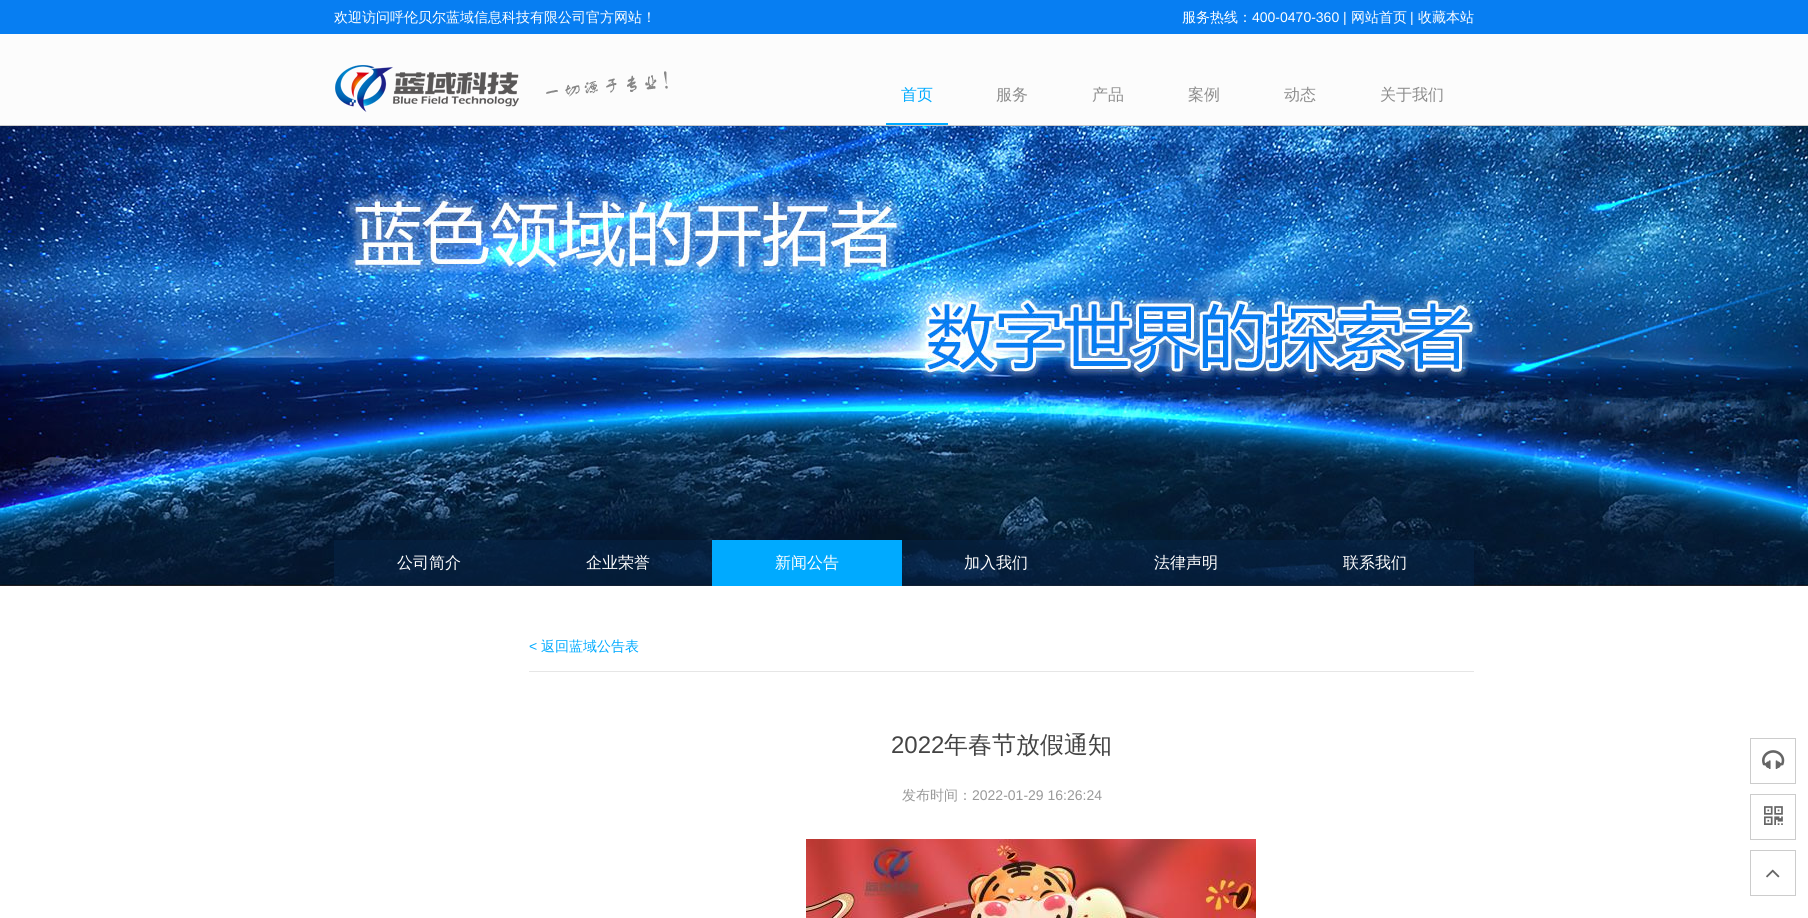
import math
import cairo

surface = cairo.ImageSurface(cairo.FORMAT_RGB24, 1808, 918)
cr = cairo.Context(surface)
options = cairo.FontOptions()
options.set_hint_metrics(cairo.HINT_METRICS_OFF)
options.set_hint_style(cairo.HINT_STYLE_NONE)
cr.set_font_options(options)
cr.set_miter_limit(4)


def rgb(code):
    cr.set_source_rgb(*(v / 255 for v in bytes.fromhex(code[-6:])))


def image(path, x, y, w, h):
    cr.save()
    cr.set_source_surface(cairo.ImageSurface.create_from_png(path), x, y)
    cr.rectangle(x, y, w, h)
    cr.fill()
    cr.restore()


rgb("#ffffff")
cr.paint()
for x, y, w, h, color in [
    (0, 0, 1808, 34, "#077ef2"),
    (0, 34, 1808, 91, "#fcfcfc"),
    (0, 125, 1808, 1, "#cacaca"),
]:
    rgb(color)
    cr.rectangle(x, y, w, h)
    cr.fill()
image("img/1.png", 335, 65, 333, 47)
rgb("#00aaff")
cr.rectangle(886, 123, 62, 2)
cr.fill()
image("img/2.png", 0, 126, 1808, 460)
cr.set_source_rgba(0.027, 0.153, 0.294, 0.5)
cr.rectangle(334, 540, 1140, 46)
cr.fill()
rgb("#00aaff")
cr.rectangle(712, 540, 190, 46)
cr.fill()
rgb("#e6e6e6")
cr.rectangle(529, 671, 945, 1)
cr.fill()
image("img/3.png", 806, 839, 450, 79)
cr.rectangle(1750.5, 738.5, 45, 45)
rgb("#cccccc")
cr.set_line_width(1)
cr.stroke()
image("img/4.png", 1762, 750, 23, 19)
cr.rectangle(1750.5, 794.5, 45, 45)
cr.stroke()
image("img/5.png", 1764, 806, 19, 19)
cr.rectangle(1750.5, 850.5, 45, 45)
cr.stroke()
image("img/6.png", 1766, 869, 14, 9)
cr.select_font_face("WenQuanYi Zen Hei Medium")
cr.set_font_size(14)
rgb("#ffffff")
cr.move_to(334, 22)
cr.show_text("欢迎访问呼伦贝尔蓝域信息科技有限公司官方网站！")
cr.move_to(1182, 22)
cr.show_text("服务热线：")
cr.select_font_face("Liberation Sans")
cr.move_to(1252, 22)
cr.show_text("400-0470-360 |")
cr.select_font_face("WenQuanYi Zen Hei Medium")
cr.move_to(1351, 22)
cr.show_text("网站首页")
cr.select_font_face("Liberation Sans")
cr.move_to(1410, 22)
cr.show_text("|")
cr.select_font_face("WenQuanYi Zen Hei Medium")
cr.move_to(1418, 22)
cr.show_text("收藏本站")
cr.set_font_size(16)
rgb("#00aaff")
cr.move_to(901, 100)
cr.show_text("首页")
rgb("#8c8c8c")
for x, y, s in [
    (996, 100, "服务"),
    (1092, 100, "产品"),
    (1188, 100, "案例"),
    (1284, 100, "动态"),
    (1380, 100, "关于我们"),
]:
    cr.move_to(x, y)
    cr.show_text(s)
rgb("#ffffff")
for x, y, s in [
    (397, 568, "公司简介"),
    (586, 568, "企业荣誉"),
    (775, 568, "新闻公告"),
    (964, 568, "加入我们"),
    (1154, 568, "法律声明"),
    (1343, 568, "联系我们"),
]:
    cr.move_to(x, y)
    cr.show_text(s)
cr.select_font_face("Liberation Sans")
cr.set_font_size(14)
rgb("#00aaff")
cr.move_to(529, 651)
cr.show_text("<")
cr.select_font_face("WenQuanYi Zen Hei Medium")
cr.move_to(541, 651)
cr.show_text("返回蓝域公告表")
cr.select_font_face("Liberation Sans")
cr.set_font_size(24)
rgb("#444444")
cr.move_to(891, 753)
cr.show_text("2022")
cr.select_font_face("WenQuanYi Zen Hei Medium")
cr.move_to(944, 753)
cr.show_text("年春节放假通知")
cr.set_font_size(14)
rgb("#999999")
cr.move_to(902, 800)
cr.show_text("发布时间：")
cr.select_font_face("Liberation Sans")
cr.move_to(972, 800)
cr.show_text("2022-01-29 16:26:24")
surface.write_to_png("page.png")
